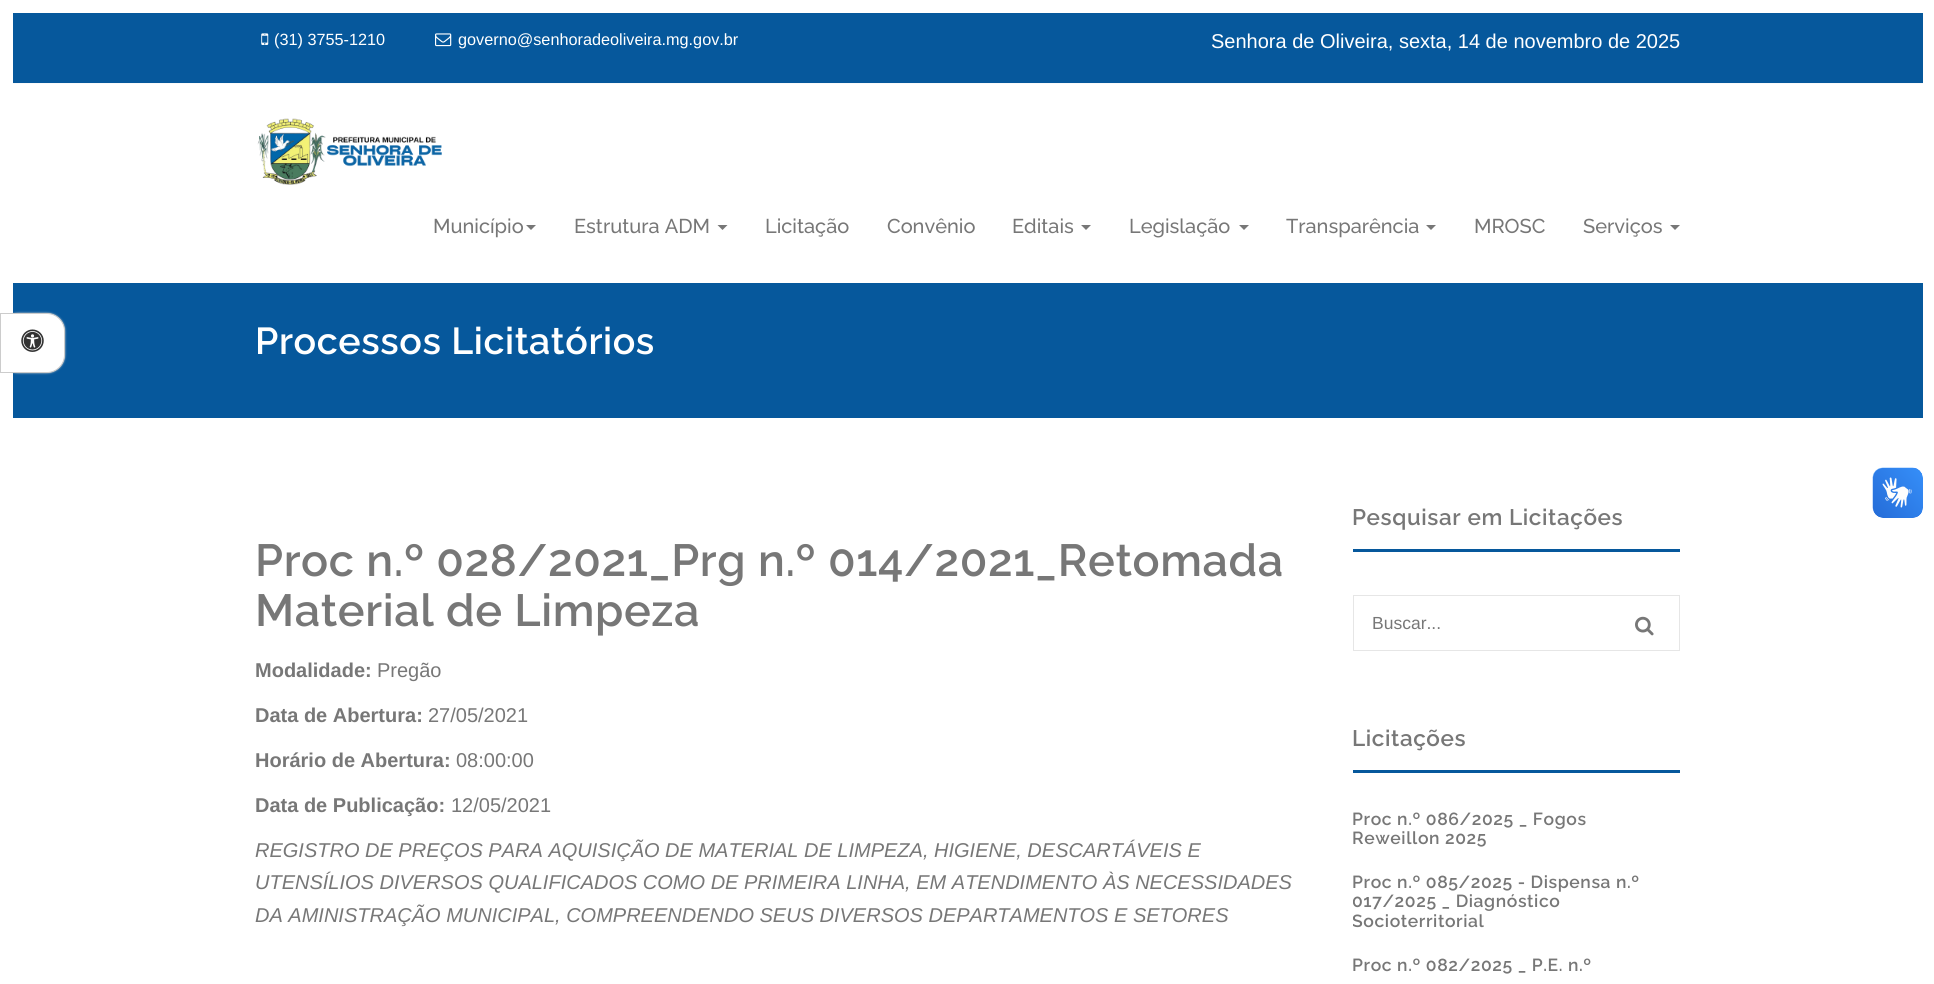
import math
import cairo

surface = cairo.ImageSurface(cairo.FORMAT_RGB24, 1934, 984)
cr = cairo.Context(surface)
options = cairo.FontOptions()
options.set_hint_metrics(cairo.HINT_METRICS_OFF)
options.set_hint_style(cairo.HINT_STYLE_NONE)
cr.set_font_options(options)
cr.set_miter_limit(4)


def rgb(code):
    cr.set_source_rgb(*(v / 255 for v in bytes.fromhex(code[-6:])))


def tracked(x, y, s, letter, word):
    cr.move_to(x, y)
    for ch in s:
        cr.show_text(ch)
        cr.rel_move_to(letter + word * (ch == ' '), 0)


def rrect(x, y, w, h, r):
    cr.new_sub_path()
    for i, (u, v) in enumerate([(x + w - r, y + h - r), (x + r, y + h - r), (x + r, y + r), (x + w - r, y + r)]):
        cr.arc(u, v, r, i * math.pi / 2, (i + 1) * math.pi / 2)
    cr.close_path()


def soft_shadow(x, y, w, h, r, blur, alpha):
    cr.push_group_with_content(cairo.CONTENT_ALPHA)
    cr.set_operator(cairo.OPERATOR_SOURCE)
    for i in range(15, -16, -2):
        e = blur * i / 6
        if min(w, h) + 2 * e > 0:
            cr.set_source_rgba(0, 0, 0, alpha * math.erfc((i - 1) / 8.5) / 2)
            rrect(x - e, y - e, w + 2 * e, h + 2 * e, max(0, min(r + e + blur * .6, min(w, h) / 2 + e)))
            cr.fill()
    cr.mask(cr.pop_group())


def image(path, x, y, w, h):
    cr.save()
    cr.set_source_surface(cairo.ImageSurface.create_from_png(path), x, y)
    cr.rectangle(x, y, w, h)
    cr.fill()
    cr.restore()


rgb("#ffffff")
cr.paint()
rgb("#06589c")
cr.rectangle(13, 13, 1910, 70)
cr.fill()
rgb("#f9f9f9")
cr.rectangle(13, 83, 1910, 1)
cr.fill()
image("img/1.png", 261, 33, 8, 12)
image("img/2.png", 435, 33, 17, 14)
image("img/3.png", 257, 118, 185, 67)
rgb("#777777")
cr.new_path()
cr.move_to(526, 225)
cr.line_to(536, 225)
cr.line_to(531, 230)
cr.close_path()
cr.fill()
cr.new_path()
cr.move_to(717.5, 225)
cr.line_to(727.5, 225)
cr.line_to(722.5, 230)
cr.close_path()
cr.fill()
cr.new_path()
cr.move_to(1081, 225)
cr.line_to(1091, 225)
cr.line_to(1086, 230)
cr.close_path()
cr.fill()
cr.new_path()
cr.move_to(1239, 225)
cr.line_to(1249, 225)
cr.line_to(1244, 230)
cr.close_path()
cr.fill()
cr.new_path()
cr.move_to(1426, 225)
cr.line_to(1436, 225)
cr.line_to(1431, 230)
cr.close_path()
cr.fill()
cr.new_path()
cr.move_to(1670, 225)
cr.line_to(1680, 225)
cr.line_to(1675, 230)
cr.close_path()
cr.fill()
rgb("#06589c")
cr.rectangle(13, 283, 1910, 135)
cr.fill()
rgb("#cccccc")
soft_shadow(0, 313, 65, 60, 18, 1, 1)
rgb("#ffffff")
cr.new_path()
cr.move_to(0.5, 313.5)
cr.line_to(47, 313.5)
cr.curve_to(56.5, 313.5, 64.5, 321.5, 64.5, 331)
cr.line_to(64.5, 355)
cr.curve_to(64.5, 364.5, 56.5, 372.5, 47, 372.5)
cr.line_to(0.5, 372.5)
cr.close_path()
cr.fill_preserve()
rgb("#cccccc")
cr.set_line_width(1)
cr.stroke()
image("img/4.png", 21, 329, 23, 23)
image("img/5.png", 1872, 467, 51, 51)
image("img/6.png", 1873, 468, 50, 50)
rgb("#06589c")
cr.rectangle(1353, 549, 327, 3)
cr.fill()
cr.rectangle(1353.5, 595.5, 326, 55)
rgb("#e6e6e6")
cr.stroke()
image("img/7.png", 1635, 616, 19, 20)
rgb("#06589c")
cr.rectangle(1353, 770, 327, 3)
cr.fill()
cr.select_font_face("Liberation Sans")
cr.set_font_size(16.25)
rgb("#ffffff")
cr.move_to(274, 45)
cr.show_text("(31) 3755-1210")
cr.move_to(458, 45)
cr.show_text("governo@senhoradeoliveira.mg.gov.br")
cr.set_font_size(20)
cr.move_to(1211, 48)
cr.show_text("Senhora de Oliveira, sexta, 14 de novembro de 2025")
cr.select_font_face("Raleway Medium")
rgb("#777777")
for x, y, s in [
    (433, 233, "Município"),
    (574, 233, "Estrutura ADM"),
    (765, 233, "Licitação"),
    (887, 233, "Convênio"),
    (1012, 233, "Editais"),
    (1129, 233, "Legislação"),
    (1286, 233, "Transparência"),
    (1474, 233, "MROSC"),
    (1583, 233, "Serviços"),
]:
    cr.move_to(x, y)
    cr.show_text(s)
cr.select_font_face("Raleway SemiBold")
cr.set_font_size(37.5)
rgb("#ffffff")
tracked(255, 354, "Processos Licitatórios", 0.6, 0)
cr.set_font_size(45)
rgb("#777777")
tracked(255, 576, "Proc n.º 028/2021_Prg n.º 014/2021_Retomada", 0.6, 0)
tracked(255, 626, "Material de Limpeza", 0.6, 0)
cr.select_font_face("Liberation Sans", cairo.FONT_SLANT_NORMAL, cairo.FONT_WEIGHT_BOLD)
cr.set_font_size(20)
cr.move_to(255, 677)
cr.show_text("Modalidade:")
cr.select_font_face("Liberation Sans")
cr.move_to(377, 677)
cr.show_text("Pregão")
cr.select_font_face("Liberation Sans", cairo.FONT_SLANT_NORMAL, cairo.FONT_WEIGHT_BOLD)
cr.move_to(255, 722)
cr.show_text("Data de Abertura:")
cr.select_font_face("Liberation Sans")
cr.move_to(428, 722)
cr.show_text("27/05/2021")
cr.select_font_face("Liberation Sans", cairo.FONT_SLANT_NORMAL, cairo.FONT_WEIGHT_BOLD)
cr.move_to(255, 767)
cr.show_text("Horário de Abertura:")
cr.select_font_face("Liberation Sans")
cr.move_to(456, 767)
cr.show_text("08:00:00")
cr.select_font_face("Liberation Sans", cairo.FONT_SLANT_NORMAL, cairo.FONT_WEIGHT_BOLD)
cr.move_to(255, 812)
cr.show_text("Data de Publicação:")
cr.select_font_face("Liberation Sans")
cr.move_to(451, 812)
cr.show_text("12/05/2021")
cr.select_font_face("Liberation Sans", cairo.FONT_SLANT_ITALIC)
for x, y, s in [
    (255, 857, "REGISTRO DE PREÇOS PARA AQUISIÇÃO DE MATERIAL DE LIMPEZA, HIGIENE, DESCARTÁVEIS E"),
    (255, 889, "UTENSÍLIOS DIVERSOS QUALIFICADOS COMO DE PRIMEIRA LINHA, EM ATENDIMENTO ÀS NECESSIDADES"),
    (255, 922, "DA AMINISTRAÇÃO MUNICIPAL, COMPREENDENDO SEUS DIVERSOS DEPARTAMENTOS E SETORES"),
]:
    cr.move_to(x, y)
    cr.show_text(s)
cr.select_font_face("Raleway SemiBold")
cr.set_font_size(22.5)
tracked(1352, 525, "Pesquisar em Licitações", 0.6, 0)
cr.select_font_face("Liberation Sans")
cr.set_font_size(17.5)
cr.move_to(1372, 629)
cr.show_text("Buscar...")
cr.select_font_face("Raleway SemiBold")
cr.set_font_size(22.5)
tracked(1352, 746, "Licitações", 0.6, 0)
cr.set_font_size(17.5)
for x, y, s in [
    (1352, 825, "Proc n.º 086/2025 _ Fogos"),
    (1352, 844, "Reweillon 2025"),
    (1352, 888, "Proc n.º 085/2025 - Dispensa n.º"),
]:
    tracked(x, y, s, 0.6, 0)
cr.save()
cr.rectangle(1353, 726, 327, 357)
cr.clip()
tracked(1352, 907, "017/2025 _ Diagnóstico", 0.6, 0)
tracked(1352, 927, "Socioterritorial", 0.6, 0)
cr.restore()
tracked(1352, 971, "Proc n.º 082/2025 _ P.E. n.º", 0.6, 0)
surface.write_to_png("page.png")
